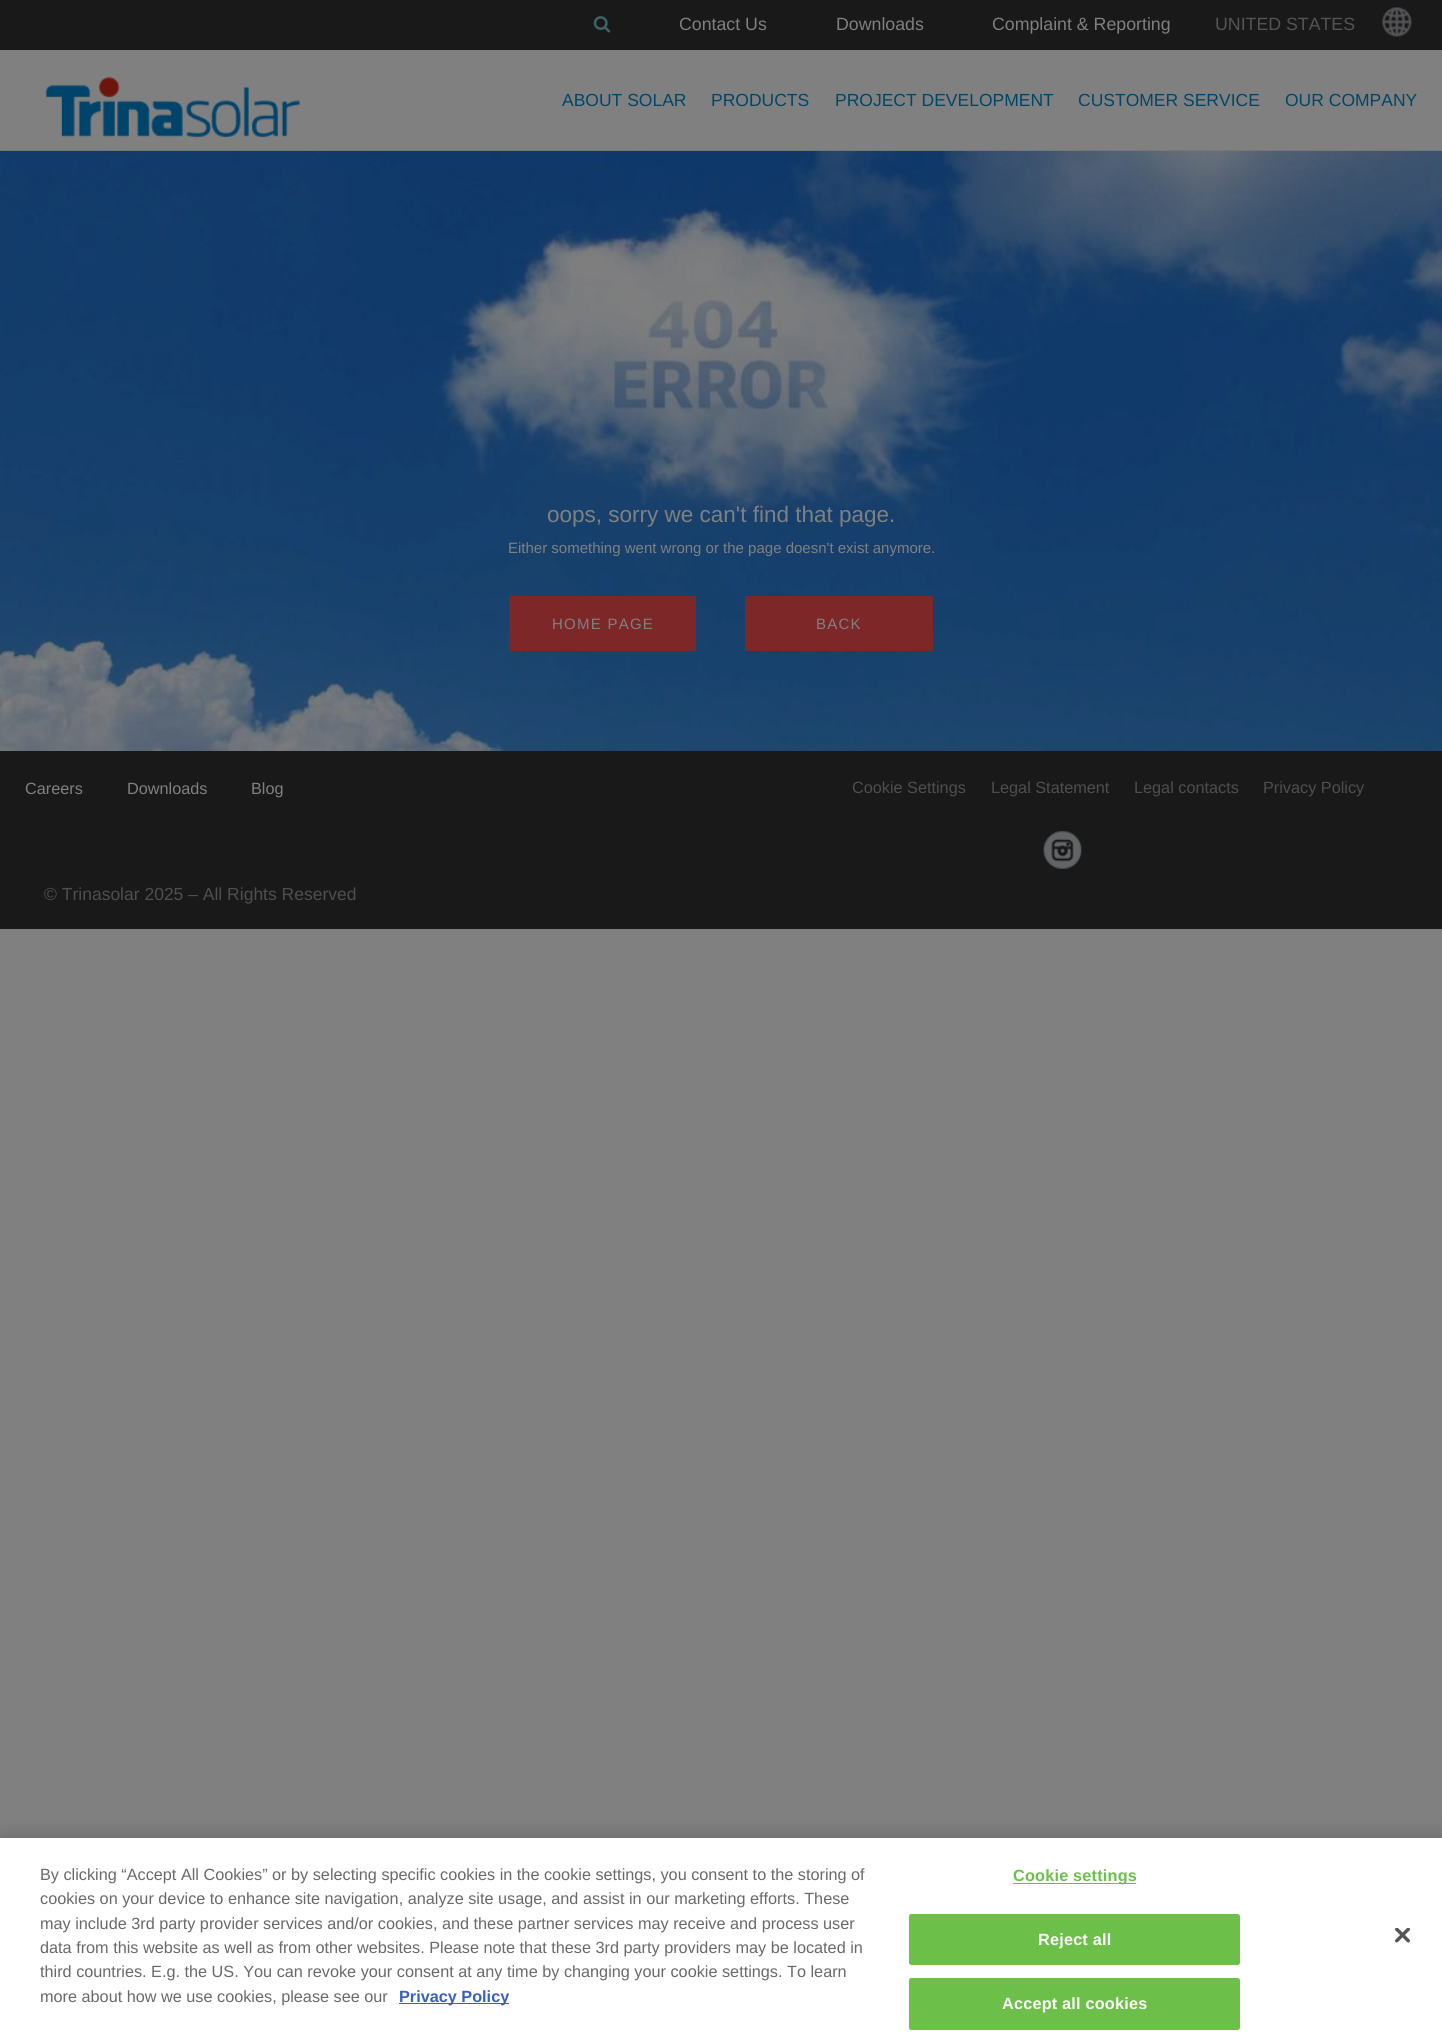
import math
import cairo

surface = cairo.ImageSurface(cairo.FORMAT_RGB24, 1442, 2037)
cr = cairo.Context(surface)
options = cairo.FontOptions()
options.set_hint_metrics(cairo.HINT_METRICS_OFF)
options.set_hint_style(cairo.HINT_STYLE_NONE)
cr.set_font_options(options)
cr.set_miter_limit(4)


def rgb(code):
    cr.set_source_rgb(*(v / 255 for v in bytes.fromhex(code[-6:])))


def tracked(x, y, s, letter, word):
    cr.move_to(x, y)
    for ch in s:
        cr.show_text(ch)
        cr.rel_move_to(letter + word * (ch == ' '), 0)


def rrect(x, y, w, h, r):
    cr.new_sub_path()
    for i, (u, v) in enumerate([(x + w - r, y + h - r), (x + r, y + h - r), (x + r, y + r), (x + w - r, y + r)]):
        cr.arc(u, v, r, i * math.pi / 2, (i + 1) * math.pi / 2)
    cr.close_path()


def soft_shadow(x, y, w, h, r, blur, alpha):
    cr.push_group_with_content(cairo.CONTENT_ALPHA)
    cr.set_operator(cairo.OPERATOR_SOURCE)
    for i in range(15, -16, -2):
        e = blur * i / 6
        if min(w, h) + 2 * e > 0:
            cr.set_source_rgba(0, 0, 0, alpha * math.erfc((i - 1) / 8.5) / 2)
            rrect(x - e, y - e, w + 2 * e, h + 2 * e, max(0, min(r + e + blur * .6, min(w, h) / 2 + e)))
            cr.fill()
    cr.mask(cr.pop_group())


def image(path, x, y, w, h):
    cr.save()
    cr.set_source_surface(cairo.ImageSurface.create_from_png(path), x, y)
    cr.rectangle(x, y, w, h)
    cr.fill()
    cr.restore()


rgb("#808080")
cr.paint()
image("img/1.png", 45, 76, 256, 62)
rgb("#777777")
cr.rectangle(0, 150, 1442, 1)
cr.fill()
rgb("#19191a")
cr.rectangle(0, 0, 1442, 50)
cr.fill()
image("img/2.png", 593, 16, 18, 17)
image("img/3.png", 1382, 7, 30, 30)
image("img/4.png", 0, 151, 1442, 600)
for x, y, w, h, color in [
    (509, 596, 187, 55, "#7e2728"),
    (745, 596, 188, 55, "#7e2728"),
    (0, 751, 1442, 178, "#19191a"),
]:
    rgb(color)
    cr.rectangle(x, y, w, h)
    cr.fill()
image("img/5.png", 1043, 831, 39, 38)
rgb("#000000")
soft_shadow(0, 1838, 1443, 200, 0, 11, 0.2)
for x, y, w, h, color in [
    (0, 1838, 1442, 199, "#ffffff"),
    (399, 2003, 110, 1, "#3860be"),
    (1013, 1883, 123, 1, "#6cc04a"),
]:
    rgb(color)
    cr.rectangle(x, y, w, h)
    cr.fill()
rrect(909.5, 1914.5, 330, 50, 2)
cr.fill_preserve()
cr.set_line_width(1)
cr.stroke()
rrect(909.5, 1978.5, 330, 51, 2)
cr.fill_preserve()
cr.stroke()
image("img/6.png", 1395, 1928, 15, 15)
cr.select_font_face("Liberation Sans")
cr.set_font_size(17.75)
rgb("#808080")
for x, y, s in [
    (679, 30, "Contact Us"),
    (836, 30, "Downloads"),
    (992, 30, "Complaint & Reporting"),
]:
    cr.move_to(x, y)
    cr.show_text(s)
rgb("#545455")
cr.move_to(1215, 30)
cr.show_text("UNITED STATES")
cr.set_font_size(17.5)
rgb("#004669")
for x, y, s in [
    (562, 106, "ABOUT SOLAR"),
    (711, 106, "PRODUCTS"),
    (835, 106, "PROJECT DEVELOPMENT"),
    (1078, 106, "CUSTOMER SERVICE"),
    (1285, 106, "OUR COMPANY"),
]:
    cr.move_to(x, y)
    cr.show_text(s)
cr.set_font_size(22.5)
rgb("#808080")
cr.move_to(547, 522)
cr.show_text("oops, sorry we can't find that page.")
cr.set_font_size(15)
cr.move_to(508, 553)
cr.show_text("Either something went wrong or the page doesn't exist anymore.")
tracked(552, 629, "HOME PAGE", 1.25, 0)
tracked(816, 629, "BACK", 1.25, 0)
cr.set_font_size(16.25)
for x, y, s in [
    (25, 794, "Careers"),
    (127, 794, "Downloads"),
    (251, 794, "Blog"),
]:
    cr.move_to(x, y)
    cr.show_text(s)
rgb("#4e4e4e")
for x, y, s in [
    (852, 793, "Cookie Settings"),
    (991, 793, "Legal Statement"),
    (1134, 793, "Legal contacts"),
    (1263, 793, "Privacy Policy"),
]:
    cr.move_to(x, y)
    cr.show_text(s)
cr.set_font_size(17.5)
cr.move_to(44, 900)
cr.show_text("© Trinasolar 2025 – All Rights Reserved")
cr.set_font_size(16.25)
rgb("#696969")
for x, y, s in [
    (40, 1880, "By clicking “Accept All Cookies” or by selecting specific cookies in the cookie settings, you consent to the storing of"),
    (40, 1904, "cookies on your device to enhance site navigation, analyze site usage, and assist in our marketing efforts. These"),
    (40, 1929, "may include 3rd party provider services and/or cookies, and these partner services may receive and process user"),
    (40, 1953, "data from this website as well as from other websites. Please note that these 3rd party providers may be located in"),
    (40, 1977, "third countries. E.g. the US. You can revoke your consent at any time by changing your cookie settings. To learn"),
    (40, 2002, "more about how we use cookies, please see our"),
]:
    cr.move_to(x, y)
    cr.show_text(s)
cr.select_font_face("Liberation Sans", cairo.FONT_SLANT_NORMAL, cairo.FONT_WEIGHT_BOLD)
rgb("#3860be")
cr.move_to(399, 2002)
cr.show_text("Privacy Policy")
rgb("#6cc04a")
tracked(1013, 1881, "Cookie settings", 0.2, 0)
rgb("#ffffff")
tracked(1038, 1945, "Reject all", 0.2, 0)
tracked(1002, 2009, "Accept all cookies", 0.2, 0)
surface.write_to_png("page.png")
